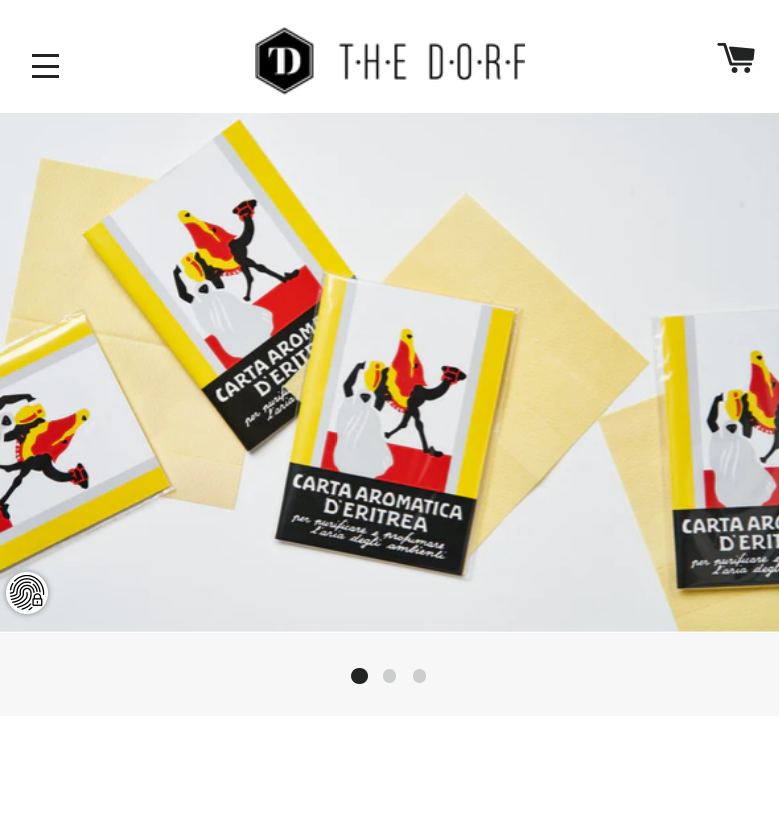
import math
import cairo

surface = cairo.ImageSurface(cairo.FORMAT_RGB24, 779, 815)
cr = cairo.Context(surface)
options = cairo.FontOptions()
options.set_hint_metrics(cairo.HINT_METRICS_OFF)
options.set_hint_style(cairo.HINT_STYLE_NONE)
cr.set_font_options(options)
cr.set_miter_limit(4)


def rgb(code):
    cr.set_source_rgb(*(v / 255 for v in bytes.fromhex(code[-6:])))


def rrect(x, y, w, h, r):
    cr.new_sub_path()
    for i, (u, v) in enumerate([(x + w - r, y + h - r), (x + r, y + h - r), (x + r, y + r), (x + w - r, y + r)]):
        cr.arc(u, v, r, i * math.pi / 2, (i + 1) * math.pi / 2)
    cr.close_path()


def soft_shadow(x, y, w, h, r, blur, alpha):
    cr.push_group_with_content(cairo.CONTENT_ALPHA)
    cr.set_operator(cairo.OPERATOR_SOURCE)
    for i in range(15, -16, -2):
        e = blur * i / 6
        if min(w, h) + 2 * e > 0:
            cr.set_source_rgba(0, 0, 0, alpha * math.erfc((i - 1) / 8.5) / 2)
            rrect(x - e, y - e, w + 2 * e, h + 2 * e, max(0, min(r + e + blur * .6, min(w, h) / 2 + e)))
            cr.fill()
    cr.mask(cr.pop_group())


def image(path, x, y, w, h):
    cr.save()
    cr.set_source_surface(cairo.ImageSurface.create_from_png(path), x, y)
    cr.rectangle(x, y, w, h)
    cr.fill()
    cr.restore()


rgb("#ffffff")
cr.paint()
for x, y, w, h, color in [
    (32, 54, 27, 3, "#222323"),
    (32, 65, 27, 3, "#222323"),
    (32, 75, 27, 3, "#222323"),
]:
    rgb(color)
    cr.rectangle(x, y, w, h)
    cr.fill()
image("img/1.png", 255, 27, 270, 68)
image("img/2.png", 717, 43, 38, 30)
rgb("#f7f7f7")
cr.rectangle(0, 631, 779, 1)
cr.fill()
image("img/3.png", 0, 113, 779, 519)
cr.rectangle(0, 633, 779, 83)
cr.fill()
rgb("#222323")
rrect(352.5, 669.5, 14, 13, 6.5)
cr.fill_preserve()
cr.set_line_width(3)
cr.stroke()
rgb("#cccdcd")
rrect(383, 669, 13, 14, 6.5)
cr.fill()
rrect(413, 669, 13, 14, 6.5)
cr.fill()
rgb("#000000")
soft_shadow(6, 572, 42, 42, 21, 3, 0.4)
rgb("#ffffff")
cr.arc(27, 593, 21, 0, 2 * math.pi)
cr.fill()
image("img/4.png", 9, 575, 36, 36)
surface.write_to_png("page.png")
